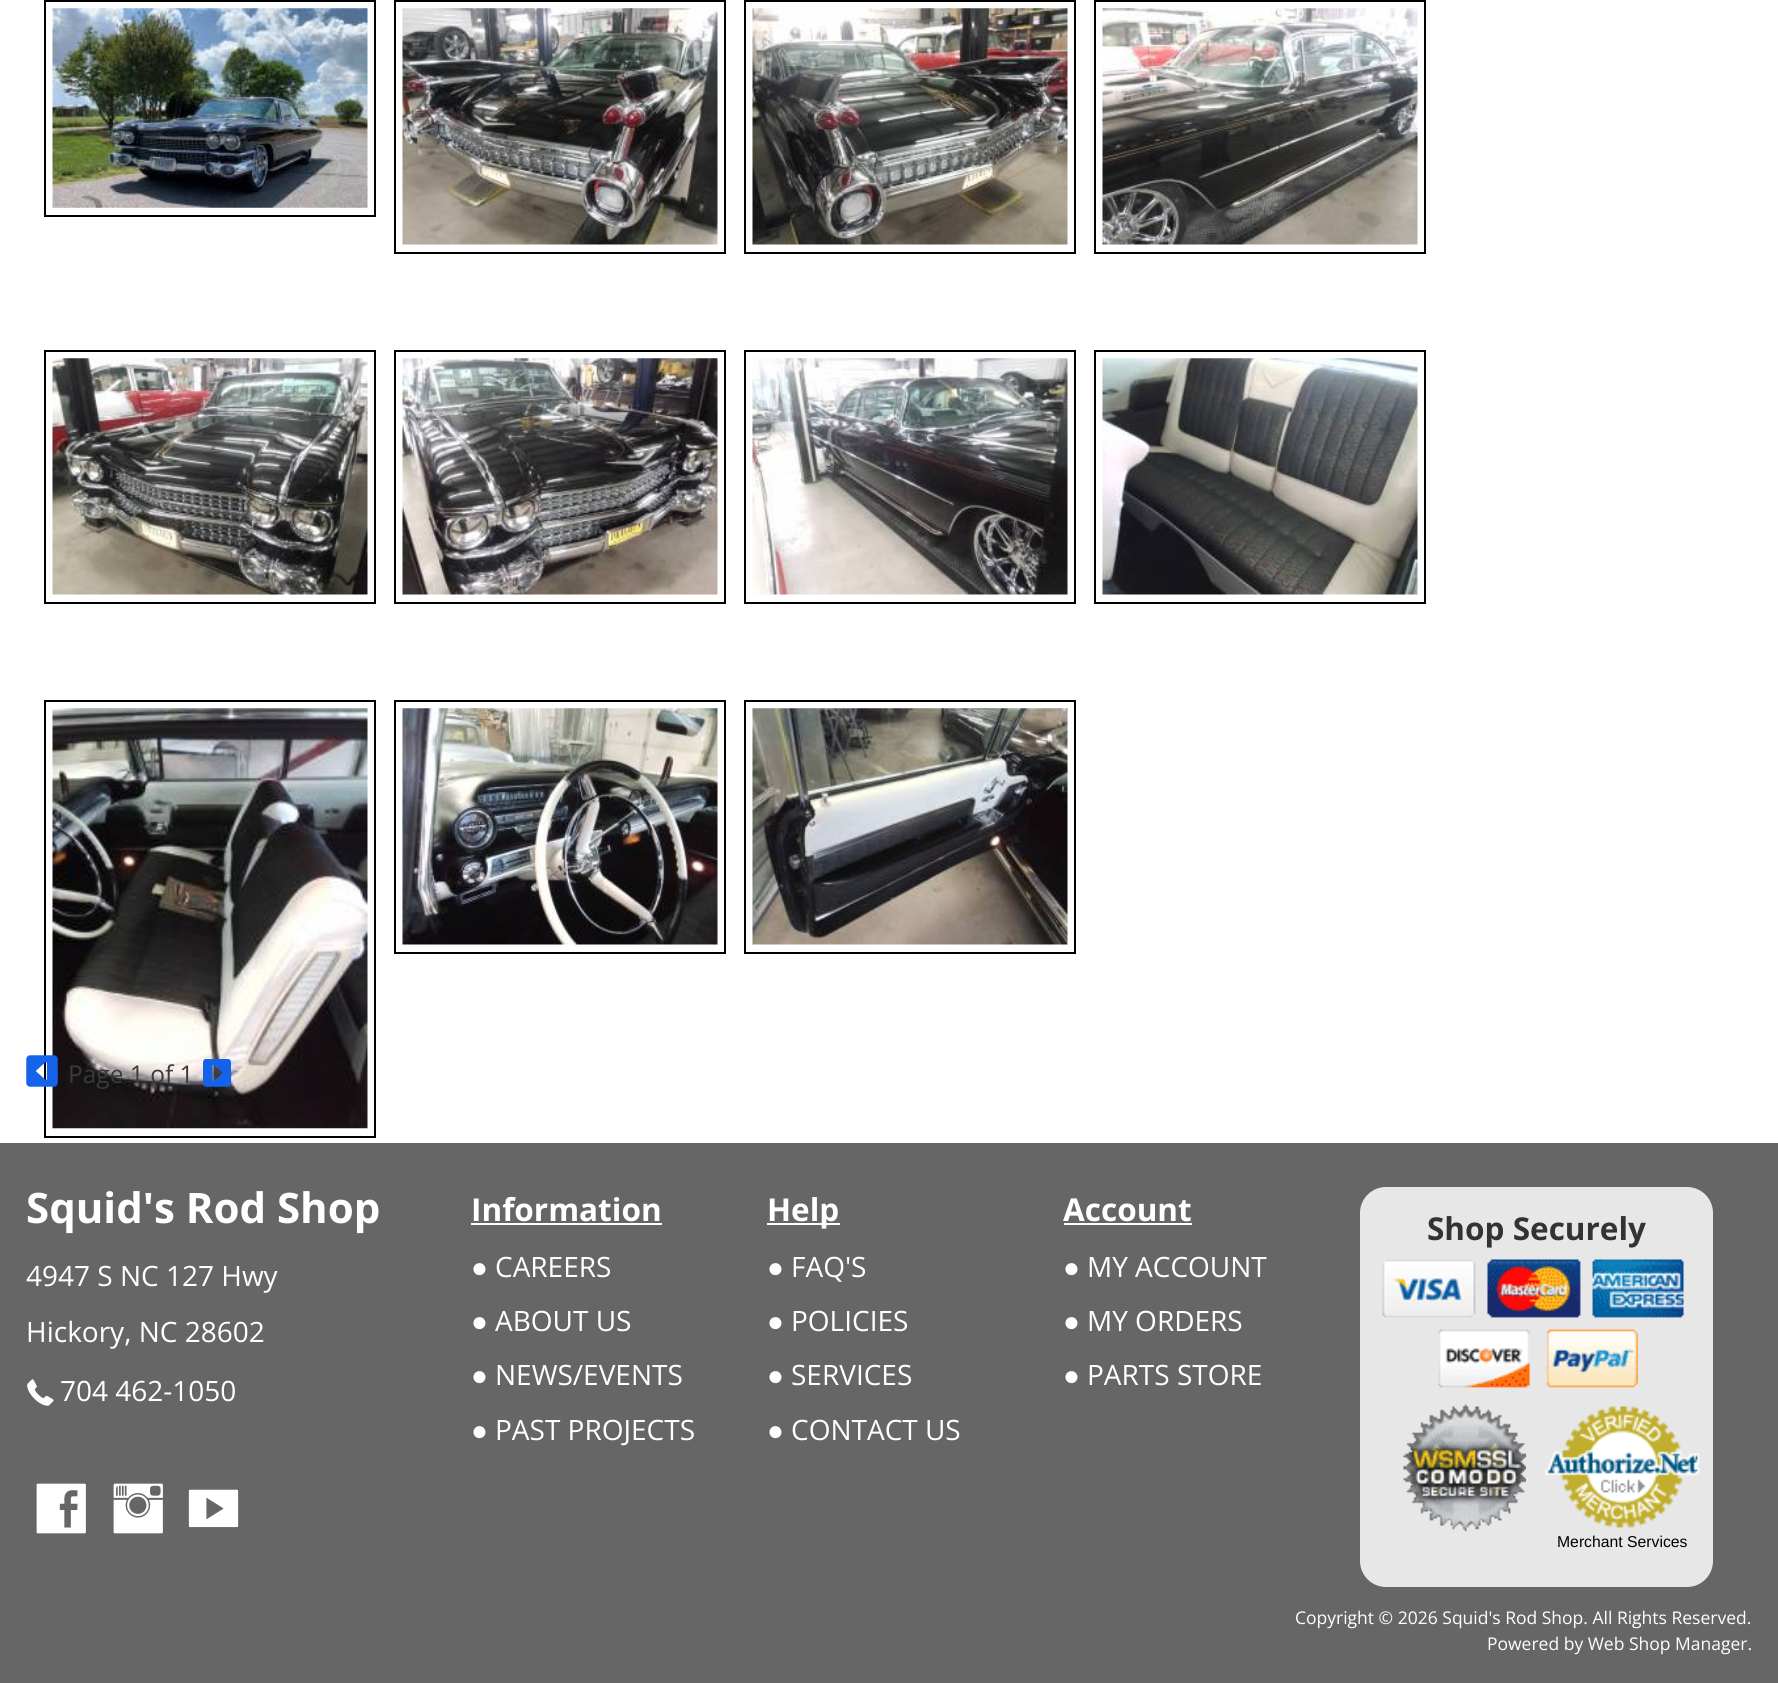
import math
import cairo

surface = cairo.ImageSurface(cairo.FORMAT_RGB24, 1778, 1683)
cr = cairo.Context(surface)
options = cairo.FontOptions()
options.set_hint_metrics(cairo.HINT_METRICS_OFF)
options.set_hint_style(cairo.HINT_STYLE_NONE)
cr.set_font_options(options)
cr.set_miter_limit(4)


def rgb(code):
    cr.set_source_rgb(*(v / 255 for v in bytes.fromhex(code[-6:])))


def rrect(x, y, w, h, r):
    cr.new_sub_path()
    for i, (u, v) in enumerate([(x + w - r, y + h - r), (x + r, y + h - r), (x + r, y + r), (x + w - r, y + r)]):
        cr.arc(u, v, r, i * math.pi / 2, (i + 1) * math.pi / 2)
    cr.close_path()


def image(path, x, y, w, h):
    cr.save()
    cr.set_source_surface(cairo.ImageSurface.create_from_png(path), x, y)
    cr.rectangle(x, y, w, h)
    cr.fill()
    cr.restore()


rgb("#ffffff")
cr.paint()
cr.rectangle(45, 1, 330, 215)
rgb("#000000")
cr.stroke()
image("img/1.png", 52, 8, 316, 200)
cr.rectangle(395, 1, 330, 252)
cr.stroke()
image("img/2.png", 402, 8, 316, 237)
cr.rectangle(745, 1, 330, 252)
cr.stroke()
image("img/3.png", 752, 8, 316, 237)
cr.rectangle(1095, 1, 330, 252)
cr.stroke()
image("img/4.png", 1102, 8, 316, 237)
cr.rectangle(45, 351, 330, 252)
cr.stroke()
image("img/5.png", 52, 358, 316, 237)
cr.rectangle(395, 351, 330, 252)
cr.stroke()
image("img/6.png", 402, 358, 316, 237)
cr.rectangle(745, 351, 330, 252)
cr.stroke()
image("img/7.png", 752, 358, 316, 237)
cr.rectangle(1095, 351, 330, 252)
cr.stroke()
image("img/8.png", 1102, 358, 316, 237)
cr.rectangle(45, 701, 330, 436)
cr.stroke()
image("img/9.png", 52, 708, 316, 421)
cr.rectangle(395, 701, 330, 252)
cr.stroke()
image("img/10.png", 402, 708, 316, 237)
cr.rectangle(745, 701, 330, 252)
cr.stroke()
image("img/11.png", 752, 708, 316, 237)
image("img/12.png", 26, 1055, 32, 32)
image("img/13.png", 203, 1059, 28, 28)
rgb("#666666")
cr.rectangle(0, 1143, 1778, 540)
cr.fill()
image("img/14.png", 27, 1379, 27, 27)
image("img/15.png", 36, 1483, 50, 51)
image("img/16.png", 113, 1483, 50, 51)
image("img/17.png", 188, 1489, 51, 39)
for x, y, w, h, color in [
    (471, 1223, 191, 2, "#ffffff"),
    (767, 1223, 73, 2, "#ffffff"),
    (1064, 1223, 128, 2, "#ffffff"),
]:
    rgb(color)
    cr.rectangle(x, y, w, h)
    cr.fill()
rgb("#e7e7e7")
rrect(1360, 1187, 353, 400, 26)
cr.fill()
image("img/18.png", 1382, 1259, 94, 59)
image("img/19.png", 1487, 1259, 94, 59)
image("img/20.png", 1592, 1259, 92, 59)
image("img/21.png", 1438, 1329, 92, 59)
image("img/22.png", 1546, 1329, 92, 59)
image("img/23.png", 1403, 1404, 123, 128)
image("img/24.png", 1545, 1406, 155, 122)
cr.select_font_face("Open Sans")
cr.set_font_size(24.5)
rgb("#3a3a3a")
cr.move_to(68, 1083)
cr.show_text("Page 1 of 1")
cr.select_font_face("Open Sans", cairo.FONT_SLANT_NORMAL, cairo.FONT_WEIGHT_BOLD)
cr.set_font_size(42)
rgb("#ffffff")
cr.move_to(26, 1223)
cr.show_text("Squid's Rod Shop")
cr.select_font_face("Open Sans")
cr.set_font_size(28)
for x, y, s in [
    (26, 1286, "4947 S NC 127 Hwy"),
    (26, 1342, "Hickory, NC 28602"),
    (60, 1401, "704 462-1050"),
]:
    cr.move_to(x, y)
    cr.show_text(s)
cr.select_font_face("Open Sans", cairo.FONT_SLANT_NORMAL, cairo.FONT_WEIGHT_BOLD)
cr.set_font_size(31.5)
cr.move_to(471, 1221)
cr.show_text("Information")
cr.select_font_face("Liberation Sans")
cr.set_font_size(28)
cr.move_to(471, 1277)
cr.show_text("●")
cr.select_font_face("Open Sans")
cr.move_to(495, 1277)
cr.show_text("CAREERS")
cr.select_font_face("Liberation Sans")
cr.move_to(471, 1331)
cr.show_text("●")
cr.select_font_face("Open Sans")
cr.move_to(495, 1331)
cr.show_text("ABOUT US")
cr.select_font_face("Liberation Sans")
cr.move_to(471, 1385)
cr.show_text("●")
cr.select_font_face("Open Sans")
cr.move_to(495, 1385)
cr.show_text("NEWS/EVENTS")
cr.select_font_face("Liberation Sans")
cr.move_to(471, 1440)
cr.show_text("●")
cr.select_font_face("Open Sans")
cr.move_to(495, 1440)
cr.show_text("PAST PROJECTS")
cr.select_font_face("Open Sans", cairo.FONT_SLANT_NORMAL, cairo.FONT_WEIGHT_BOLD)
cr.set_font_size(31.5)
cr.move_to(767, 1221)
cr.show_text("Help")
cr.select_font_face("Liberation Sans")
cr.set_font_size(28)
cr.move_to(767, 1277)
cr.show_text("●")
cr.select_font_face("Open Sans")
cr.move_to(791, 1277)
cr.show_text("FAQ'S")
cr.select_font_face("Liberation Sans")
cr.move_to(767, 1331)
cr.show_text("●")
cr.select_font_face("Open Sans")
cr.move_to(791, 1331)
cr.show_text("POLICIES")
cr.select_font_face("Liberation Sans")
cr.move_to(767, 1385)
cr.show_text("●")
cr.select_font_face("Open Sans")
cr.move_to(791, 1385)
cr.show_text("SERVICES")
cr.select_font_face("Liberation Sans")
cr.move_to(767, 1440)
cr.show_text("●")
cr.select_font_face("Open Sans")
cr.move_to(791, 1440)
cr.show_text("CONTACT US")
cr.select_font_face("Open Sans", cairo.FONT_SLANT_NORMAL, cairo.FONT_WEIGHT_BOLD)
cr.set_font_size(31.5)
cr.move_to(1063, 1221)
cr.show_text("Account")
cr.select_font_face("Liberation Sans")
cr.set_font_size(28)
cr.move_to(1063, 1277)
cr.show_text("●")
cr.select_font_face("Open Sans")
cr.move_to(1087, 1277)
cr.show_text("MY ACCOUNT")
cr.select_font_face("Liberation Sans")
cr.move_to(1063, 1331)
cr.show_text("●")
cr.select_font_face("Open Sans")
cr.move_to(1087, 1331)
cr.show_text("MY ORDERS")
cr.select_font_face("Liberation Sans")
cr.move_to(1063, 1385)
cr.show_text("●")
cr.select_font_face("Open Sans")
cr.move_to(1087, 1385)
cr.show_text("PARTS STORE")
cr.select_font_face("Open Sans", cairo.FONT_SLANT_NORMAL, cairo.FONT_WEIGHT_BOLD)
cr.set_font_size(31.5)
rgb("#333333")
cr.move_to(1427, 1240)
cr.show_text("Shop Securely")
cr.select_font_face("Liberation Sans")
cr.set_font_size(15.75)
rgb("#000000")
cr.move_to(1557, 1547)
cr.show_text("Merchant Services")
cr.select_font_face("Open Sans")
cr.set_font_size(17.5)
rgb("#ffffff")
cr.move_to(1295, 1624)
cr.show_text("Copyright © 2026 Squid's Rod Shop. All Rights Reserved.")
cr.move_to(1487, 1650)
cr.show_text("Powered by Web Shop Manager.")
surface.write_to_png("page.png")
